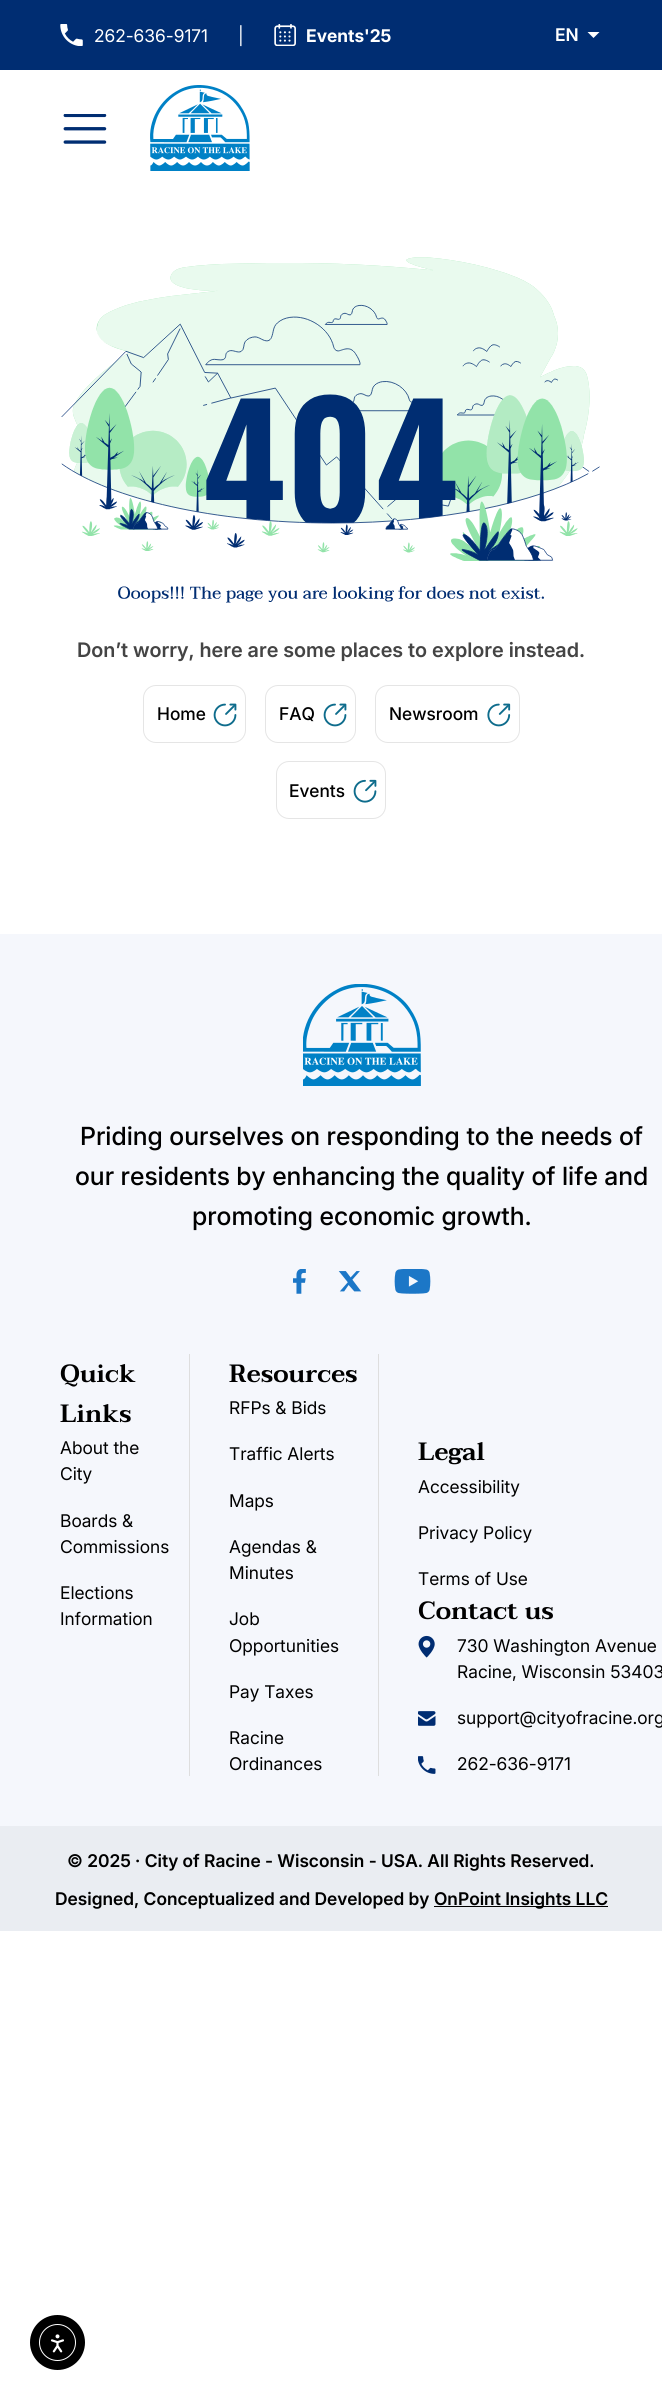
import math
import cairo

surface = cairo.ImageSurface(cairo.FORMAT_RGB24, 662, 2400)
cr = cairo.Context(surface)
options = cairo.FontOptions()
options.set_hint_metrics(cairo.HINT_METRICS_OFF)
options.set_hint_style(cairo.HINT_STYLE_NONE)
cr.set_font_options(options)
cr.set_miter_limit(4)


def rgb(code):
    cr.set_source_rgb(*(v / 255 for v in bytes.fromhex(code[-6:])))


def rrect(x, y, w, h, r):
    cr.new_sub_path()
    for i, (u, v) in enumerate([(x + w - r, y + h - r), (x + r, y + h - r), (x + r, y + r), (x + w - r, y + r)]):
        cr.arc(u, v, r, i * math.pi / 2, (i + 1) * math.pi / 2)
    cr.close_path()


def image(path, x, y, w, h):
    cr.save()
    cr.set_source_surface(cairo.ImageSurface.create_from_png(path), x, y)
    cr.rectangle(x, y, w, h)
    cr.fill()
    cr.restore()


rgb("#ffffff")
cr.paint()
rgb("#002d72")
cr.rectangle(0, 0, 662, 70)
cr.fill()
image("img/1.png", 60, 24, 23, 22)
image("img/2.png", 274, 24, 22, 22)
rgb("#ffffff")
cr.new_path()
cr.move_to(593.5, 38)
cr.line_to(587.5, 32)
cr.line_to(599.5, 32)
cr.close_path()
cr.fill()
image("img/3.png", 63, 114, 44, 30)
image("img/4.png", 150, 85, 100, 86)
image("img/5.png", 61, 257, 539, 346)
rrect(143.5, 685.5, 102, 57, 12.5)
rgb("#e5e5e5")
cr.set_line_width(1)
cr.stroke()
image("img/6.png", 213, 703, 24, 24)
rrect(265.5, 685.5, 90, 57, 12.5)
cr.stroke()
image("img/6.png", 323, 703, 24, 24)
rrect(375.5, 685.5, 144, 57, 12.5)
cr.stroke()
image("img/7.png", 487, 703, 24, 24)
rrect(276.5, 761.5, 109, 57, 12.5)
cr.stroke()
image("img/8.png", 353, 779, 24, 24)
rgb("#f5f7fc")
cr.rectangle(0, 934, 662, 892)
cr.fill()
image("img/9.png", 303, 984, 118, 102)
image("img/10.png", 293, 1269, 13, 25)
image("img/11.png", 338, 1271, 24, 21)
image("img/12.png", 394, 1269, 37, 25)
rgb("#dedede")
cr.rectangle(189, 1354, 1, 422)
cr.fill()
cr.rectangle(378, 1354, 1, 422)
cr.fill()
image("img/13.png", 418, 1635, 17, 23)
image("img/14.png", 418, 1711, 18, 15)
image("img/15.png", 418, 1756, 18, 18)
rgb("#eaedf2")
cr.rectangle(0, 1826, 662, 105)
cr.fill()
rgb("#000000")
cr.rectangle(434, 1906, 174, 1)
cr.fill()
cr.arc(57.5, 2342.5, 27.5, 0, 2 * math.pi)
cr.fill()
cr.arc(57.5, 2342.5, 18, 0, 2 * math.pi)
rgb("#ffffff")
cr.stroke()
image("img/16.png", 50, 2334, 14, 19)
cr.select_font_face("Inter")
cr.set_font_size(17.5)
cr.move_to(94, 42)
cr.show_text("262-636-9171")
cr.move_to(238, 42)
cr.show_text("|")
cr.select_font_face("Inter", cairo.FONT_SLANT_NORMAL, cairo.FONT_WEIGHT_BOLD)
cr.move_to(306, 42)
cr.show_text("Events'25")
cr.select_font_face("Inter SemiBold")
cr.move_to(555, 41)
cr.show_text("EN")
cr.set_font_size(20)
rgb("#444444")
cr.move_to(77, 657)
cr.show_text("Don’t worry, here are some places to explore instead.")
cr.select_font_face("Inter Medium")
cr.set_font_size(17.5)
rgb("#000000")
for x, y, s in [
    (157, 720, "Home"),
    (279, 720, "FAQ"),
    (389, 720, "Newsroom"),
    (289, 797, "Events"),
]:
    cr.move_to(x, y)
    cr.show_text(s)
cr.set_font_size(25)
for x, y, s in [
    (80, 1145, "Priding ourselves on responding to the needs of"),
    (75, 1185, "our residents by enhancing the quality of life and"),
    (192, 1225, "promoting economic growth."),
]:
    cr.move_to(x, y)
    cr.show_text(s)
cr.select_font_face("Taviraj SemiBold")
cr.move_to(60, 1382)
cr.show_text("Quick")
cr.move_to(60, 1422)
cr.show_text("Links")
cr.select_font_face("Inter")
cr.set_font_size(17.5)
for x, y, s in [
    (60, 1454, "About the"),
    (60, 1480, "City"),
    (60, 1527, "Boards &"),
    (60, 1553, "Commissions"),
    (60, 1599, "Elections"),
    (60, 1625, "Information"),
]:
    cr.move_to(x, y)
    cr.show_text(s)
cr.select_font_face("Taviraj SemiBold")
cr.set_font_size(25)
cr.move_to(229, 1382)
cr.show_text("Resources")
cr.select_font_face("Inter")
cr.set_font_size(17.5)
for x, y, s in [
    (229, 1414, "RFPs & Bids"),
    (229, 1460, "Traffic Alerts"),
    (229, 1507, "Maps"),
    (229, 1553, "Agendas &"),
    (229, 1579, "Minutes"),
    (229, 1625, "Job"),
    (229, 1652, "Opportunities"),
    (229, 1698, "Pay Taxes"),
    (229, 1744, "Racine"),
    (229, 1770, "Ordinances"),
]:
    cr.move_to(x, y)
    cr.show_text(s)
cr.select_font_face("Taviraj SemiBold")
cr.set_font_size(25)
cr.move_to(418, 1460)
cr.show_text("Legal")
cr.select_font_face("Inter")
cr.set_font_size(17.5)
for x, y, s in [
    (418, 1493, "Accessibility"),
    (418, 1539, "Privacy Policy"),
    (418, 1585, "Terms of Use"),
]:
    cr.move_to(x, y)
    cr.show_text(s)
cr.select_font_face("Taviraj SemiBold")
cr.set_font_size(25)
cr.move_to(418, 1619)
cr.show_text("Contact us")
cr.select_font_face("Inter")
cr.set_font_size(17.5)
for x, y, s in [
    (457, 1652, "730 Washington Avenue"),
    (457, 1678, "Racine, Wisconsin 53403"),
    (457, 1724, "support@cityofracine.org"),
    (457, 1770, "262-636-9171"),
]:
    cr.move_to(x, y)
    cr.show_text(s)
cr.select_font_face("Inter SemiBold")
for x, y, s in [
    (67, 1867, "© 2025 · City of Racine - Wisconsin - USA. All Rights Reserved."),
    (55, 1905, "Designed, Conceptualized and Developed by"),
    (434, 1905, "OnPoint Insights LLC"),
]:
    cr.move_to(x, y)
    cr.show_text(s)
surface.write_to_png("page.png")
